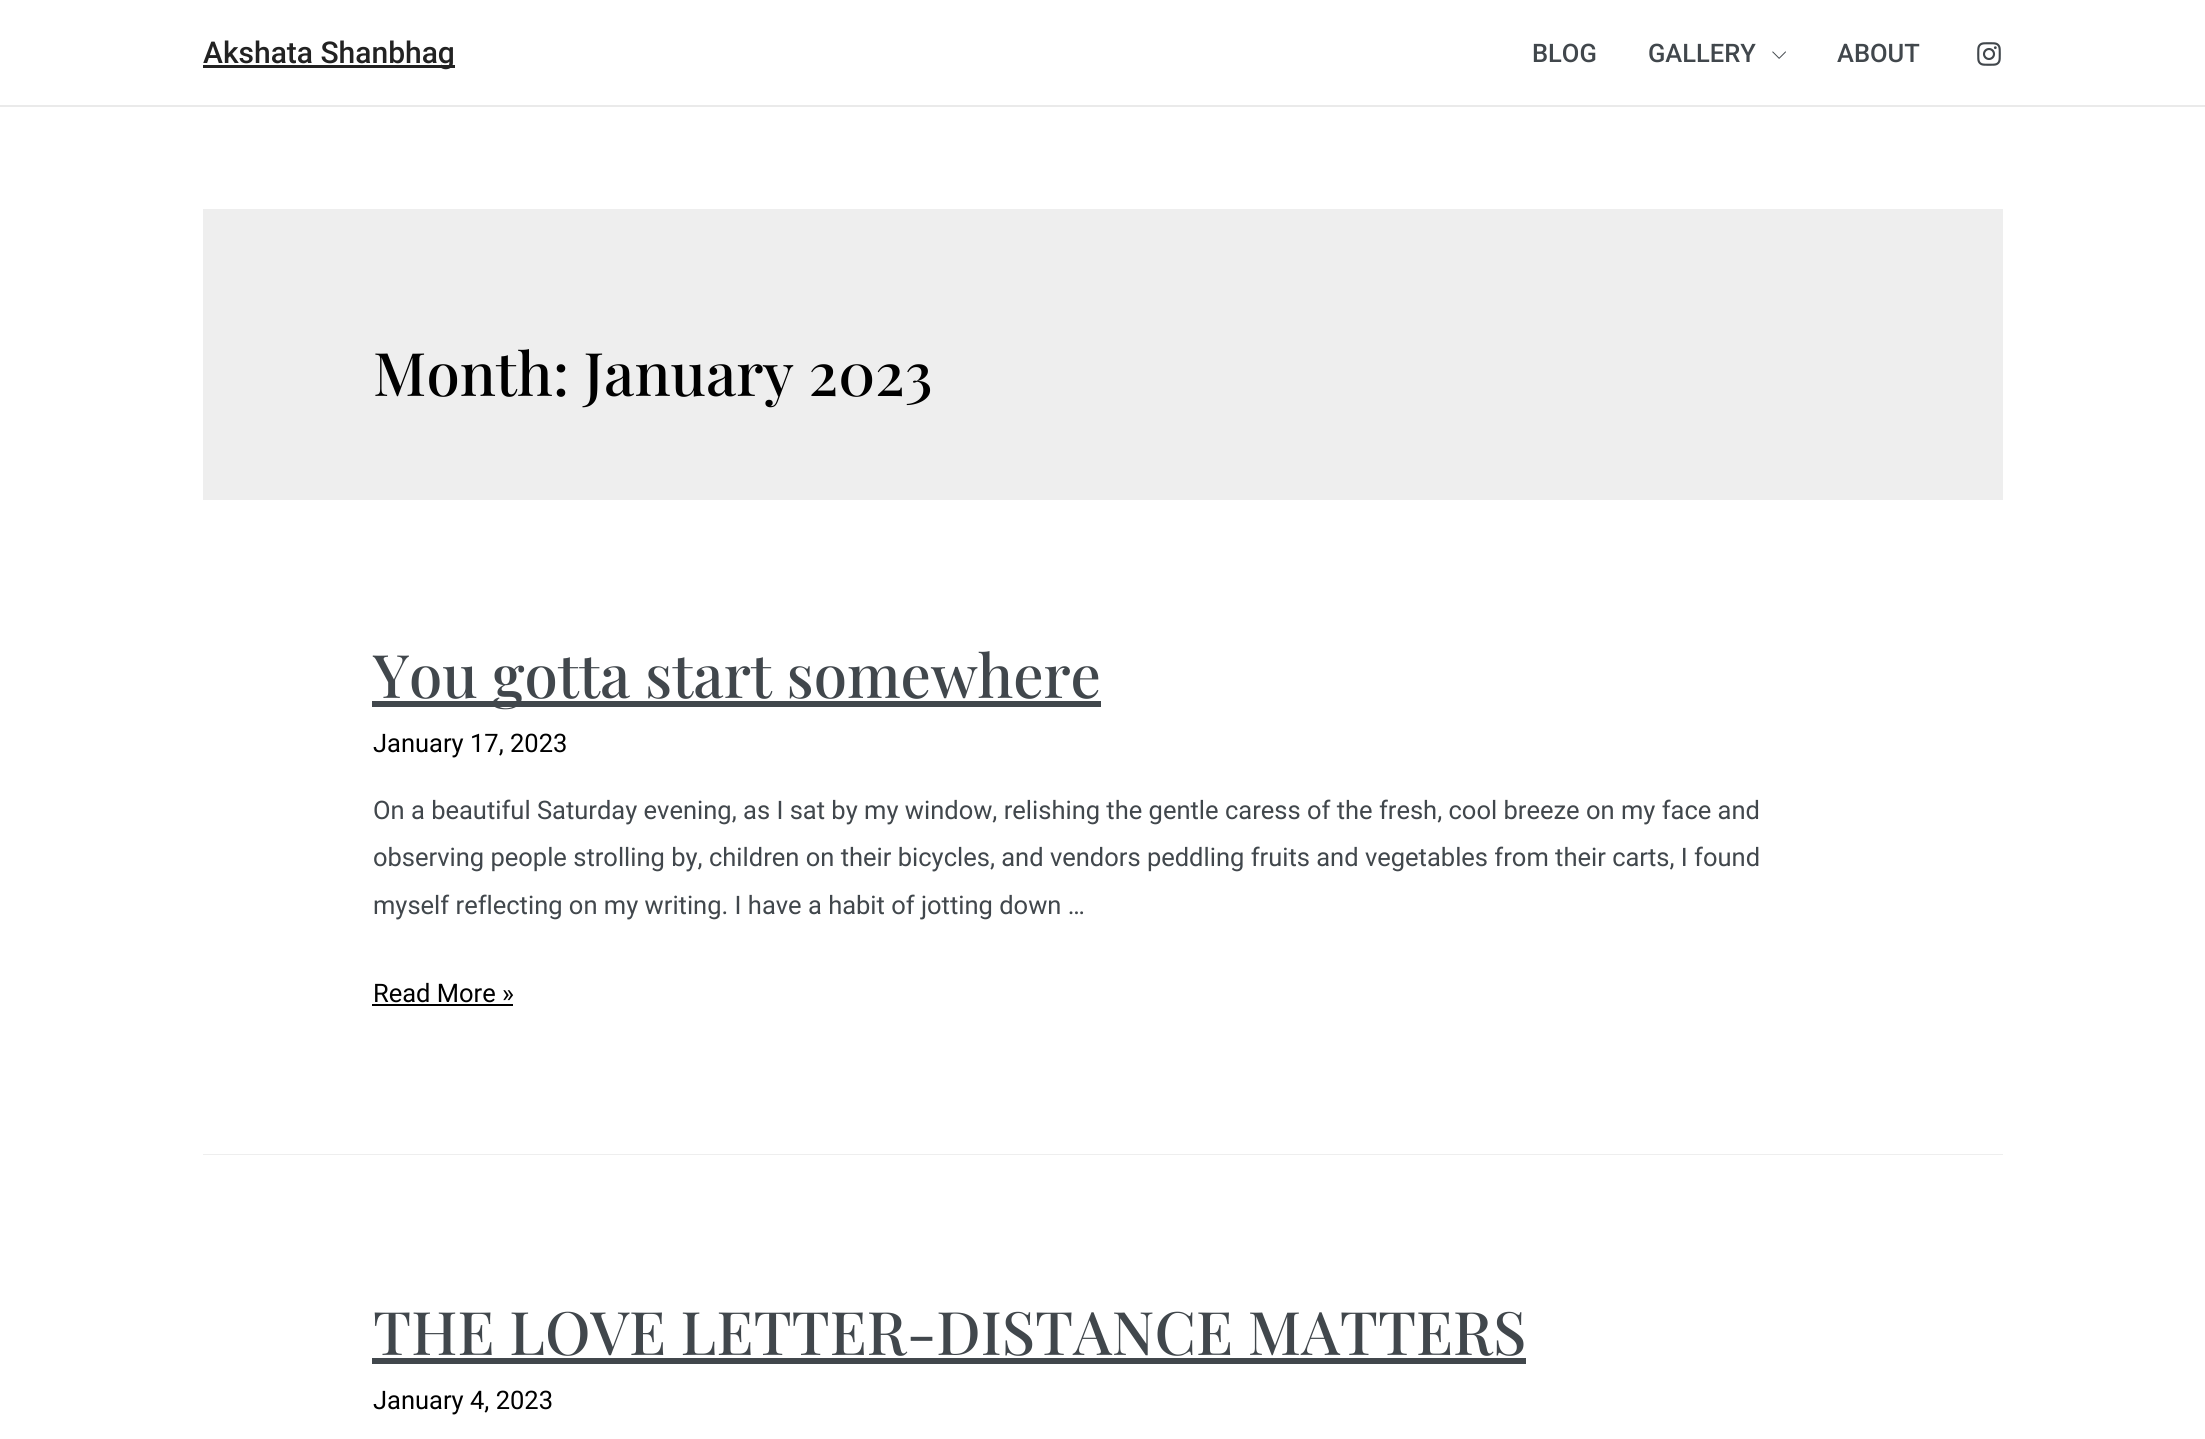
import math
import cairo

surface = cairo.ImageSurface(cairo.FORMAT_RGB24, 2205, 1439)
cr = cairo.Context(surface)
options = cairo.FontOptions()
options.set_hint_metrics(cairo.HINT_METRICS_OFF)
options.set_hint_style(cairo.HINT_STYLE_NONE)
cr.set_font_options(options)
cr.set_miter_limit(4)


def rgb(code):
    cr.set_source_rgb(*(v / 255 for v in bytes.fromhex(code[-6:])))


def image(path, x, y, w, h):
    cr.save()
    cr.set_source_surface(cairo.ImageSurface.create_from_png(path), x, y)
    cr.rectangle(x, y, w, h)
    cr.fill()
    cr.restore()


rgb("#ffffff")
cr.paint()
rgb("#eaeaea")
cr.rectangle(0, 105, 2205, 2)
cr.fill()
rgb("#222222")
cr.rectangle(203, 65, 252, 3)
cr.fill()
image("img/1.png", 1772, 51, 14, 8)
image("img/2.png", 1977, 42, 24, 24)
for x, y, w, h, color in [
    (203, 209, 1800, 291, "#eeeeee"),
    (203, 1154, 1800, 1, "#eeeeee"),
    (372, 701, 729, 6, "#41474c"),
    (372, 1004, 141, 2, "#000000"),
    (372, 1358, 1154, 6, "#41474c"),
]:
    rgb(color)
    cr.rectangle(x, y, w, h)
    cr.fill()
cr.select_font_face("Roboto Medium")
cr.set_font_size(30)
rgb("#222222")
cr.move_to(203, 63)
cr.show_text("Akshata Shanbhag")
cr.set_font_size(25.5)
rgb("#41474c")
for x, y, s in [
    (1532, 62, "BLOG"),
    (1648, 62, "GALLERY"),
    (1837, 62, "ABOUT"),
]:
    cr.move_to(x, y)
    cr.show_text(s)
cr.select_font_face("Playfair Display Medium")
cr.set_font_size(60)
rgb("#000000")
cr.move_to(373, 396)
cr.show_text("Month: January 2023")
rgb("#41474c")
cr.move_to(373, 698)
cr.show_text("You gotta start somewhere")
cr.select_font_face("Roboto")
cr.set_font_size(25.5)
rgb("#000000")
cr.move_to(373, 752)
cr.show_text("January 17, 2023")
rgb("#41474c")
for x, y, s in [
    (373, 819, "On a beautiful Saturday evening, as I sat by my window, relishing the gentle caress of the fresh, cool breeze on my face and"),
    (373, 866, "observing people strolling by, children on their bicycles, and vendors peddling fruits and vegetables from their carts, I found"),
    (373, 914, "myself reflecting on my writing. I have a habit of jotting down …"),
]:
    cr.move_to(x, y)
    cr.show_text(s)
rgb("#000000")
cr.move_to(373, 1002)
cr.show_text("Read More »")
cr.select_font_face("Playfair Display Medium")
cr.set_font_size(60)
rgb("#41474c")
cr.move_to(373, 1355)
cr.show_text("THE LOVE LETTER-DISTANCE MATTERS")
cr.select_font_face("Roboto")
cr.set_font_size(25.5)
rgb("#000000")
cr.move_to(373, 1409)
cr.show_text("January 4, 2023")
surface.write_to_png("page.png")
